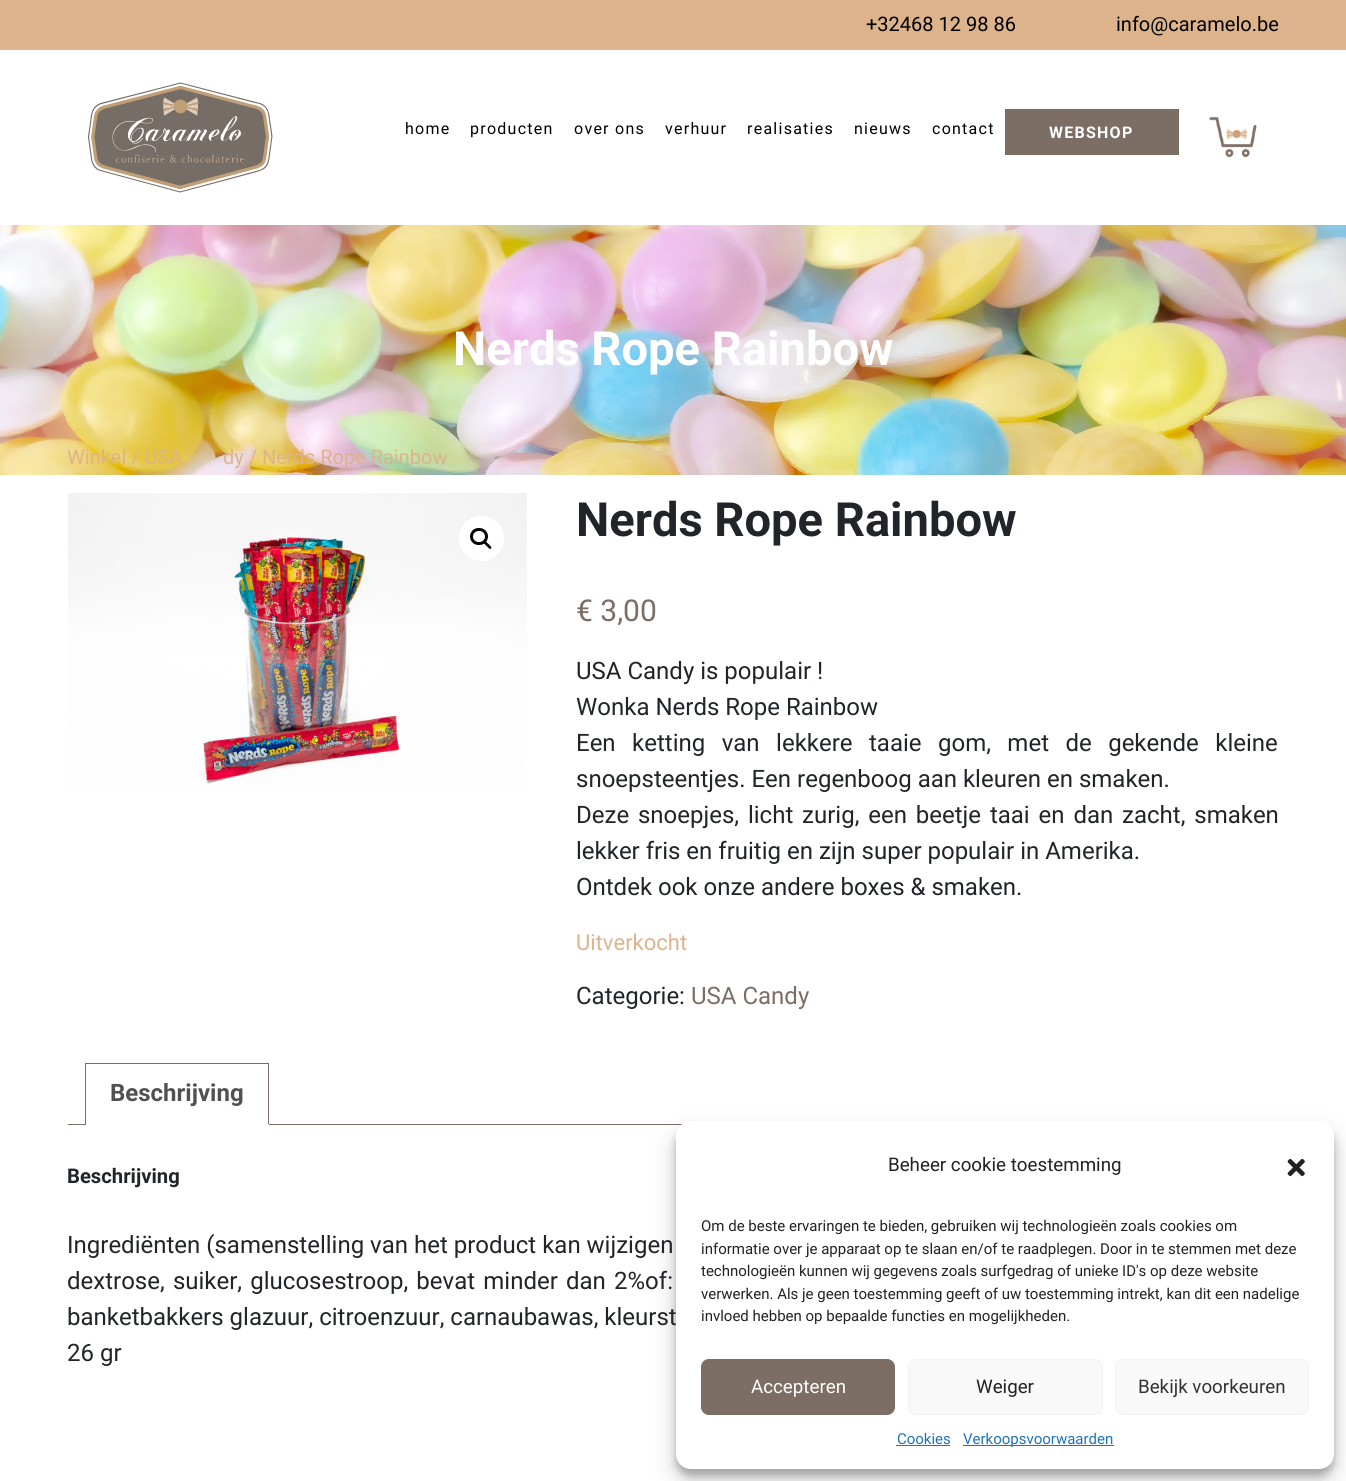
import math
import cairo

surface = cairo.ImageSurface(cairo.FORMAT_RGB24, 1346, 1481)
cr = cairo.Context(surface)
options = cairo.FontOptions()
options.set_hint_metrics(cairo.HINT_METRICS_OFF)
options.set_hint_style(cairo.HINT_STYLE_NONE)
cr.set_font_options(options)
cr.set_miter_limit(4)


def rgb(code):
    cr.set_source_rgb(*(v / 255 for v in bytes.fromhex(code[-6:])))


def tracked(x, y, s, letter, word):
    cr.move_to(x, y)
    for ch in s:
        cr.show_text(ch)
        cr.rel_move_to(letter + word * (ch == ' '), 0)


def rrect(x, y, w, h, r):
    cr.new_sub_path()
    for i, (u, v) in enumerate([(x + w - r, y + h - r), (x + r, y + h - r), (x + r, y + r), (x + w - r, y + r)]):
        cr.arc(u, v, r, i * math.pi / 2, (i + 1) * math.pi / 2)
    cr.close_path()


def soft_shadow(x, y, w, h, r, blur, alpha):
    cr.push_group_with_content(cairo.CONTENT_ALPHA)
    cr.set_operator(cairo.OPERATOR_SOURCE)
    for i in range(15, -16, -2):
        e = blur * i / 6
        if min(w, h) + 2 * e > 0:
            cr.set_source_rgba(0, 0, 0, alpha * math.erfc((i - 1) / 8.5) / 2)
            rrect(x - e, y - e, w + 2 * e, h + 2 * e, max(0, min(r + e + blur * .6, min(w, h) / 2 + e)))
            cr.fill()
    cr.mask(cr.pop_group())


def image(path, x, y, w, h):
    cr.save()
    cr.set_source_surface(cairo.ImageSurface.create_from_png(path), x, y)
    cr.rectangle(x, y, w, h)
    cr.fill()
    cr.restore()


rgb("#ffffff")
cr.paint()
rgb("#ddb38b")
cr.rectangle(0, 0, 1346, 50)
cr.fill()
image("img/1.png", 88, 82, 185, 111)
rgb("#7c6e65")
cr.rectangle(1005, 109, 174, 46)
cr.fill()
image("img/2.png", 1209, 116, 48, 42)
image("img/3.png", 0, 225, 1346, 250)
image("img/4.png", 68, 493, 459, 298)
rgb("#ffffff")
cr.arc(481.5, 538.5, 22.5, 0, 2 * math.pi)
cr.fill()
rrect(471.5, 529.5, 15, 14, 7)
rgb("#000000")
cr.set_line_width(3)
cr.stroke()
cr.new_path()
cr.move_to(484, 541.5)
cr.curve_to(485.5, 540, 487.5, 543.5, 488.5, 544)
cr.curve_to(489, 545, 492.5, 547, 491, 548.5)
cr.curve_to(489.5, 550, 487.5, 546.5, 486.5, 546)
cr.curve_to(486, 545, 482.5, 543, 484, 541.5)
cr.close_path()
cr.fill()
for x, y, w, h, color in [
    (85, 1063, 184, 1, "#7c6e65"),
    (68, 1124, 614, 1, "#7c6e65"),
    (268, 1063, 1, 62, "#7c6e65"),
    (85, 1124, 184, 1, "#ffffff"),
    (85, 1063, 1, 62, "#7c6e65"),
]:
    rgb(color)
    cr.rectangle(x, y, w, h)
    cr.fill()
rgb("#000000")
soft_shadow(676, 1129, 658, 347, 15, 4, 0.23)
soft_shadow(676, 1134, 658, 347, 15, 12.5, 0.19)
rgb("#ffffff")
rrect(676, 1121, 658, 348, 15)
cr.fill()
image("img/5.png", 1287, 1158, 18, 19)
rgb("#7c6e65")
rrect(701.5, 1359.5, 193, 55, 7.5)
cr.fill_preserve()
cr.set_line_width(1)
cr.stroke()
rgb("#f9f9f9")
rrect(908.5, 1359.5, 194, 55, 7.5)
cr.fill_preserve()
rgb("#f2f2f2")
cr.stroke()
rgb("#f9f9f9")
rrect(1115.5, 1359.5, 193, 55, 7.5)
cr.fill_preserve()
rgb("#f2f2f2")
cr.stroke()
rgb("#1e73be")
cr.rectangle(896, 1445, 54, 1)
cr.fill()
cr.rectangle(963, 1445, 151, 1)
cr.fill()
cr.select_font_face("Roboto")
cr.set_font_size(20)
rgb("#000000")
cr.move_to(866, 31)
cr.show_text("+32468 12 98 86")
cr.move_to(1116, 31)
cr.show_text("info@caramelo.be")
cr.set_font_size(16)
for x, y, s in [
    (405, 134, "home"),
    (470, 134, "producten"),
    (574, 134, "over ons"),
    (665, 134, "verhuur"),
    (747, 134, "realisaties"),
    (854, 134, "nieuws"),
    (932, 134, "contact"),
]:
    tracked(x, y, s, 1.25, 0)
cr.select_font_face("Roboto", cairo.FONT_SLANT_NORMAL, cairo.FONT_WEIGHT_BOLD)
rgb("#ffffff")
tracked(1049, 138, "WEBSHOP", 1.25, 0)
cr.set_font_size(47.1)
cr.move_to(453, 365)
cr.show_text("Nerds Rope Rainbow")
cr.select_font_face("Roboto")
cr.set_font_size(20)
rgb("#ddb38b")
cr.move_to(67, 464)
cr.show_text("Winkel / USA")
cr.move_to(223, 464)
cr.show_text("dy / Nerds Rope Rainbow")
cr.select_font_face("Roboto", cairo.FONT_SLANT_NORMAL, cairo.FONT_WEIGHT_BOLD)
cr.set_font_size(47.1)
rgb("#212529")
cr.move_to(576, 536)
cr.show_text("Nerds Rope Rainbow")
cr.select_font_face("Roboto")
cr.set_font_size(30)
rgb("#7c6e65")
cr.move_to(576, 621)
cr.show_text("€ 3,00")
cr.set_font_size(24)
rgb("#212529")
cr.move_to(576, 679)
cr.show_text("USA Candy is populair !")
cr.move_to(576, 715)
cr.show_text("Wonka Nerds Rope Rainbow")
tracked(576, 751, "Een ketting van lekkere taaie gom, met de gekende kleine", 0, 10.5)
cr.move_to(576, 787)
cr.show_text("snoepsteentjes. Een regenboog aan kleuren en smaken.")
tracked(576, 823, "Deze snoepjes, licht zurig, een beetje taai en dan zacht, smaken", 0, 2.9)
cr.move_to(576, 859)
cr.show_text("lekker fris en fruitig en zijn super populair in Amerika.")
cr.move_to(576, 895)
cr.show_text("Ontdek ook onze andere boxes & smaken.")
cr.set_font_size(22)
rgb("#ddb38b")
cr.move_to(576, 950)
cr.show_text("Uitverkocht")
cr.set_font_size(24)
rgb("#212529")
cr.move_to(576, 1004)
cr.show_text("Categorie:")
rgb("#7c6e65")
cr.move_to(691, 1004)
cr.show_text("USA Candy")
cr.select_font_face("Roboto", cairo.FONT_SLANT_NORMAL, cairo.FONT_WEIGHT_BOLD)
rgb("#515151")
cr.move_to(110, 1101)
cr.show_text("Beschrijving")
cr.set_font_size(20.25)
rgb("#212529")
cr.move_to(67, 1183)
cr.show_text("Beschrijving")
cr.select_font_face("Roboto")
cr.set_font_size(24)
cr.move_to(67, 1253)
cr.show_text("Ingrediënten (samenstelling van het product kan wijzigen")
tracked(67, 1289, "dextrose, suiker, glucosestroop, bevat minder dan 2%of:", 0, 2.25)
cr.move_to(67, 1325)
cr.show_text("banketbakkers glazuur, citroenzuur, carnaubawas, kleurst")
cr.move_to(67, 1361)
cr.show_text("26 gr")
cr.set_font_size(18.75)
rgb("#222222")
cr.move_to(888, 1171)
cr.show_text("Beheer cookie toestemming")
cr.set_font_size(15)
for x, y, s in [
    (701, 1231, "Om de beste ervaringen te bieden, gebruiken wij technologieën zoals cookies om"),
    (701, 1254, "informatie over je apparaat op te slaan en/of te raadplegen. Door in te stemmen met deze"),
    (701, 1276, "technologieën kunnen wij gegevens zoals surfgedrag of unieke ID's op deze website"),
    (701, 1299, "verwerken. Als je geen toestemming geeft of uw toestemming intrekt, kan dit een nadelige"),
    (701, 1321, "invloed hebben op bepaalde functies en mogelijkheden."),
]:
    cr.move_to(x, y)
    cr.show_text(s)
cr.set_font_size(18.75)
rgb("#ffffff")
cr.move_to(751, 1393)
cr.show_text("Accepteren")
rgb("#222222")
cr.move_to(976, 1393)
cr.show_text("Weiger")
rgb("#333333")
cr.move_to(1138, 1393)
cr.show_text("Bekijk voorkeuren")
cr.set_font_size(15)
rgb("#1e73be")
cr.move_to(897, 1444)
cr.show_text("Cookies")
cr.move_to(963, 1444)
cr.show_text("Verkoopsvoorwaarden")
surface.write_to_png("page.png")
